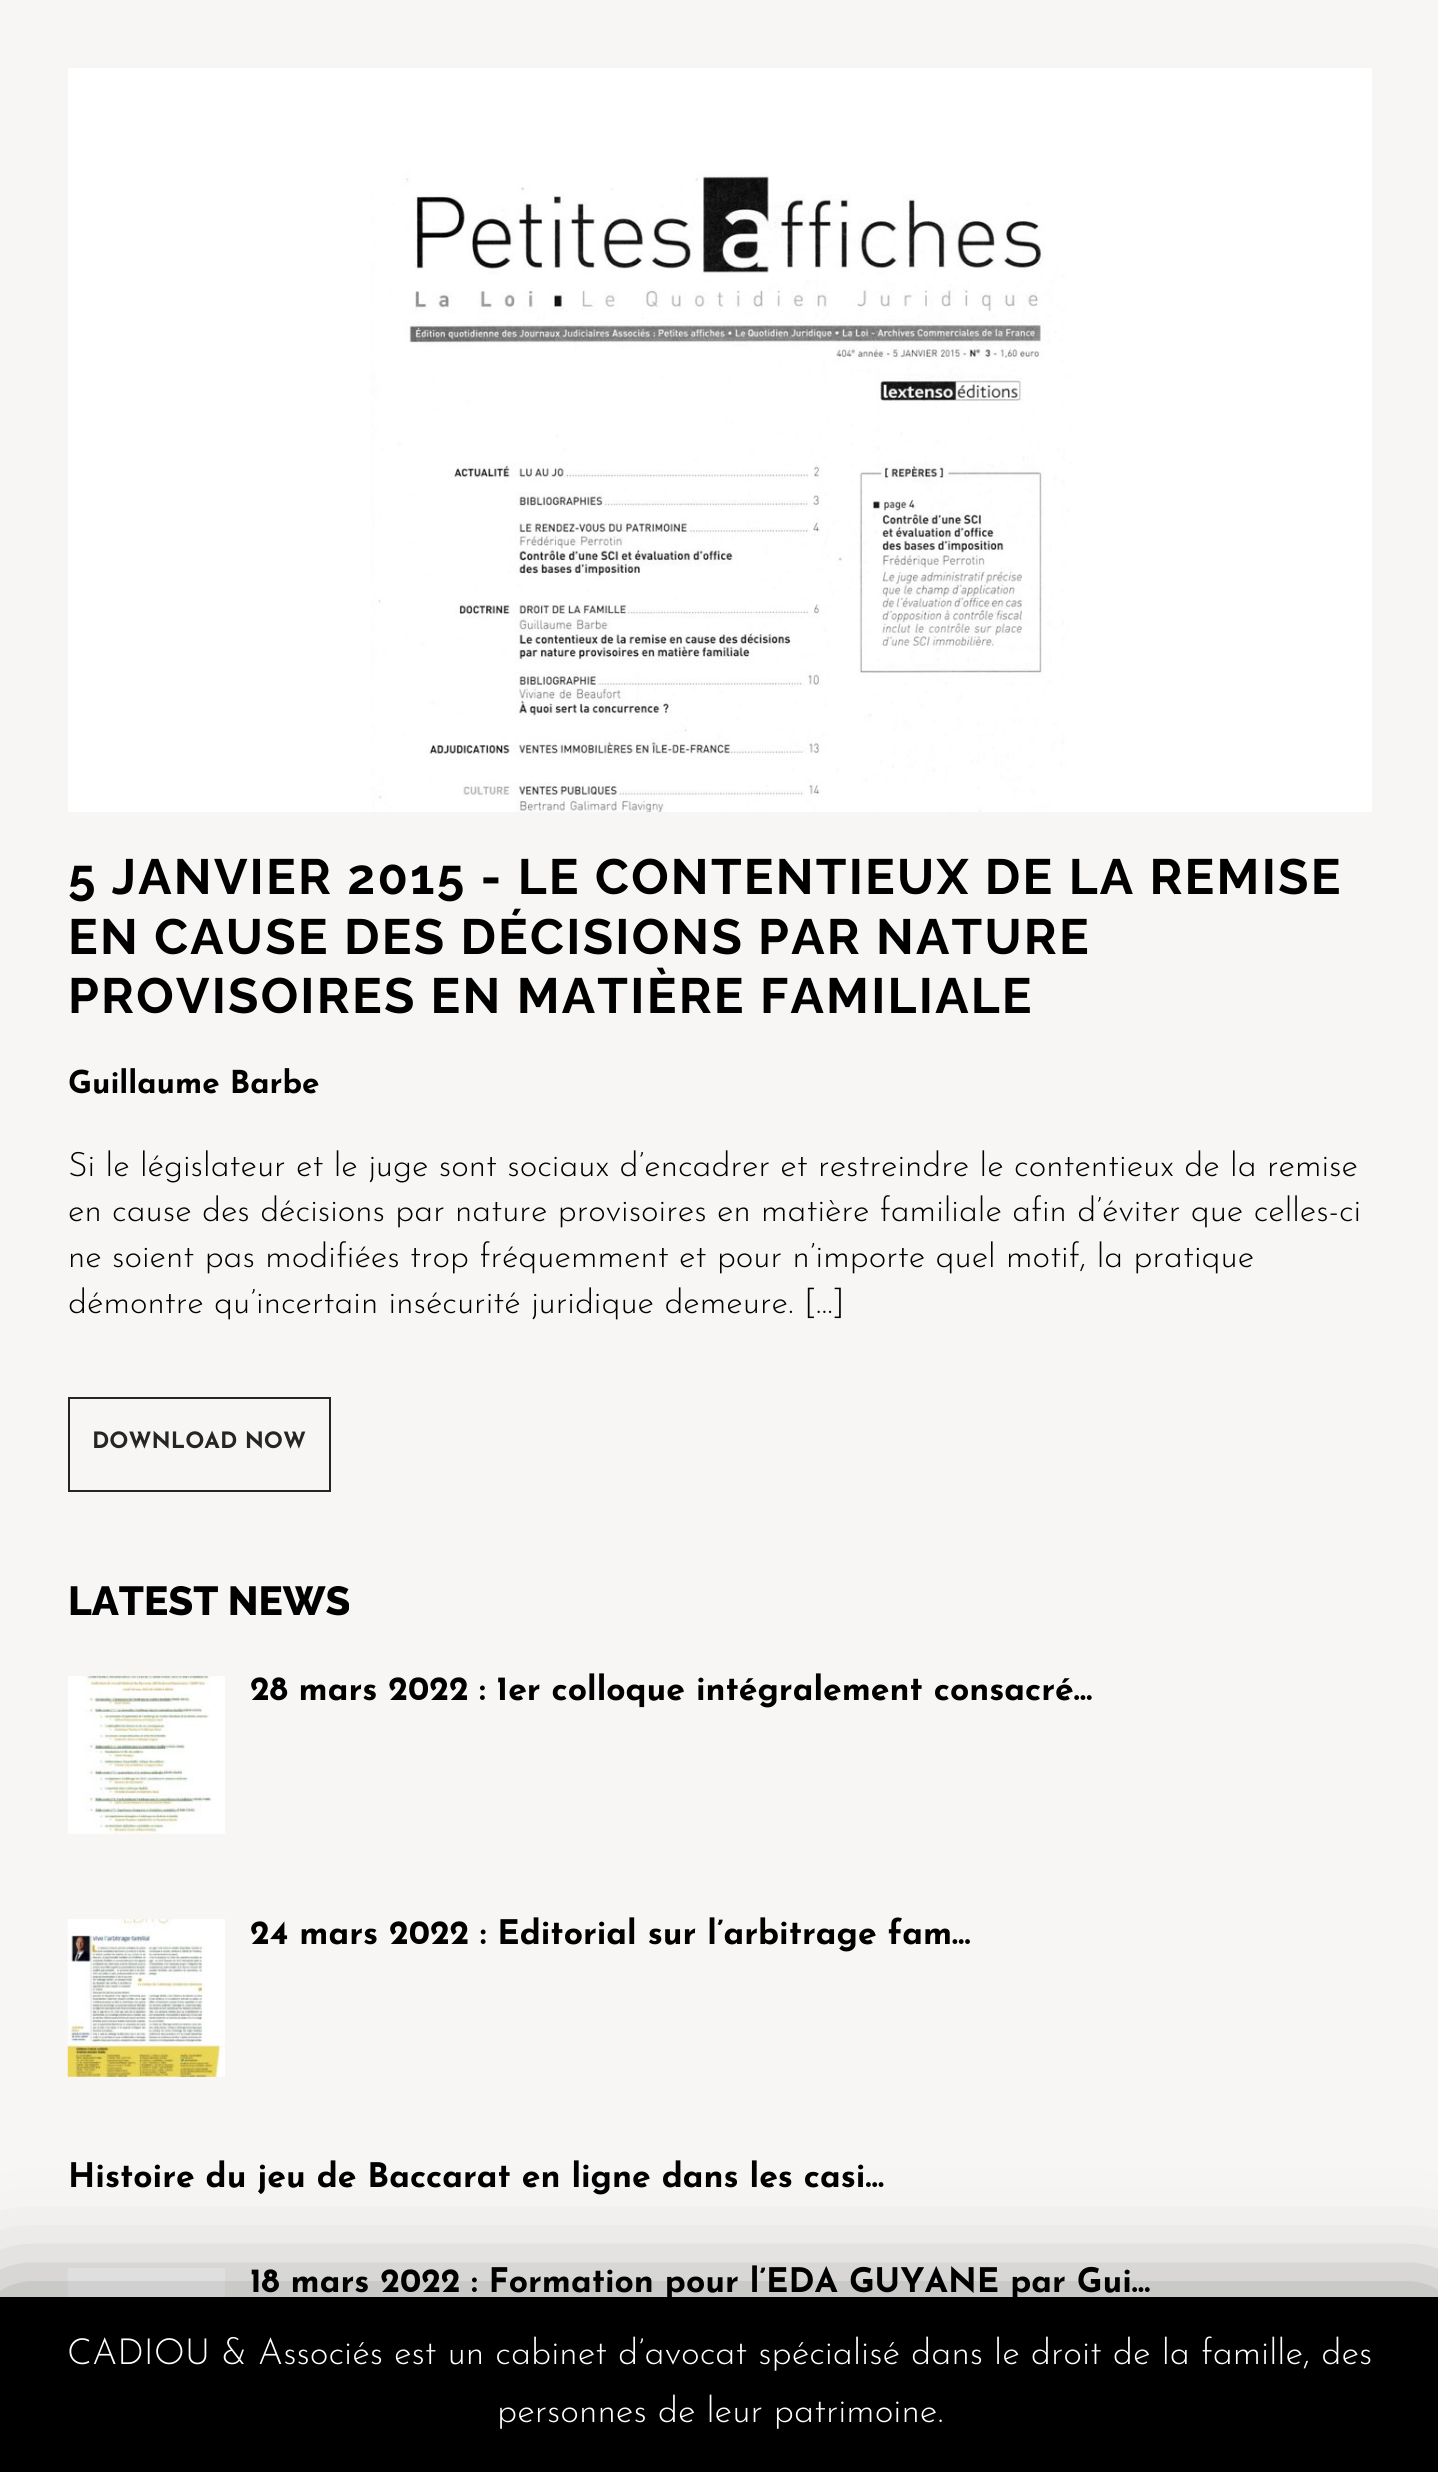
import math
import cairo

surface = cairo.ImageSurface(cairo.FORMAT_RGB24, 1438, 2472)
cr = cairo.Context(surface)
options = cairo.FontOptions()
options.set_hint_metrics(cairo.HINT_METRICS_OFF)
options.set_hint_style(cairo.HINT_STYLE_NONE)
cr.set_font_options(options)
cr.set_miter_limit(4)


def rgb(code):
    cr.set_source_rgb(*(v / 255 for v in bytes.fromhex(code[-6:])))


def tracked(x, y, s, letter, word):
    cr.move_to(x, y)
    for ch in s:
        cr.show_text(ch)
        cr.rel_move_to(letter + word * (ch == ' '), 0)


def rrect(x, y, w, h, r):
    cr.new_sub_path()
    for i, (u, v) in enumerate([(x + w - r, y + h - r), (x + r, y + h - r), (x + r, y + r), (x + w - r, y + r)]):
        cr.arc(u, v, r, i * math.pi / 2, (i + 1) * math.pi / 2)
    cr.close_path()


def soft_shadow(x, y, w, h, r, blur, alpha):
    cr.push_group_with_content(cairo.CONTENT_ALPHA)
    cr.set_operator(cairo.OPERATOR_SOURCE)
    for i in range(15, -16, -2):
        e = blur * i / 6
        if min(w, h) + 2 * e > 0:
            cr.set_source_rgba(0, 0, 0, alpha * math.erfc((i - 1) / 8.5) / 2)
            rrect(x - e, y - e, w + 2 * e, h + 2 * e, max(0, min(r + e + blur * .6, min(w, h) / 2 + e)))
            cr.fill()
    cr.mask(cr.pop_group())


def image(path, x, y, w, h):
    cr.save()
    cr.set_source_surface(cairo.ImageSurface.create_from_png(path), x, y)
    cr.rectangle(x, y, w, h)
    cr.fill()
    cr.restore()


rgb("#f7f6f5")
cr.paint()
image("img/1.png", 68, 68, 1304, 745)
cr.rectangle(69, 1398, 261, 93)
rgb("#252525")
cr.stroke()
image("img/2.png", 68, 1676, 157, 158)
image("img/3.png", 67, 1919, 158, 158)
image("img/4.png", 67, 2268, 158, 29)
rgb("#000000")
soft_shadow(0, 2309, 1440, 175, 0, 56, 0.5)
rgb("#000000")
cr.rectangle(0, 2297, 1438, 175)
cr.fill()
cr.select_font_face("Raleway", cairo.FONT_SLANT_NORMAL, cairo.FONT_WEIGHT_BOLD)
cr.set_font_size(49.5)
for x, y, s in [
    (68, 894, "5 JANVIER 2015 - LE CONTENTIEUX DE LA REMISE"),
    (68, 954, "EN CAUSE DES DÉCISIONS PAR NATURE"),
    (68, 1013, "PROVISOIRES EN MATIÈRE FAMILIALE"),
]:
    tracked(x, y, s, 2.25, 0)
cr.select_font_face("Josefin Sans", cairo.FONT_SLANT_NORMAL, cairo.FONT_WEIGHT_BOLD)
cr.set_font_size(31.5)
cr.move_to(68, 1093)
cr.show_text("Guillaume Barbe")
cr.select_font_face("Josefin Sans Light")
cr.set_font_size(33.75)
for x, y, s in [
    (68, 1176, "Si le législateur et le juge sont sociaux d’encadrer et restreindre le contentieux de la remise"),
    (68, 1221, "en cause des décisions par nature provisoires en matière familiale afin d’éviter que celles-ci"),
    (68, 1267, "ne soient pas modifiées trop fréquemment et pour n’importe quel motif, la pratique"),
    (68, 1313, "démontre qu’incertain insécurité juridique demeure. […]"),
]:
    cr.move_to(x, y)
    cr.show_text(s)
cr.select_font_face("Josefin Sans", cairo.FONT_SLANT_NORMAL, cairo.FONT_WEIGHT_BOLD)
cr.set_font_size(22.5)
rgb("#252525")
cr.move_to(92, 1448)
cr.show_text("DOWNLOAD NOW")
cr.select_font_face("Raleway ExtraBold")
cr.set_font_size(40.5)
rgb("#000000")
cr.move_to(68, 1615)
cr.show_text("LATEST NEWS")
cr.select_font_face("Josefin Sans", cairo.FONT_SLANT_NORMAL, cairo.FONT_WEIGHT_BOLD)
cr.set_font_size(33.75)
for x, y, s in [
    (250, 1700, "28 mars 2022 : 1er colloque intégralement consacré…"),
    (250, 1944, "24 mars 2022 : Editorial sur l’arbitrage fam…"),
    (68, 2187, "Histoire du jeu de Baccarat en ligne dans les casi…"),
    (250, 2292, "18 mars 2022 : Formation pour l’EDA GUYANE par Gui…"),
]:
    cr.move_to(x, y)
    cr.show_text(s)
cr.select_font_face("Josefin Sans Light")
cr.set_font_size(36)
rgb("#ffffff")
cr.move_to(67, 2364)
cr.show_text("CADIOU & Associés est un cabinet d’avocat spécialisé dans le droit de la famille, des")
cr.move_to(497, 2422)
cr.show_text("personnes de leur patrimoine.")
surface.write_to_png("page.png")
